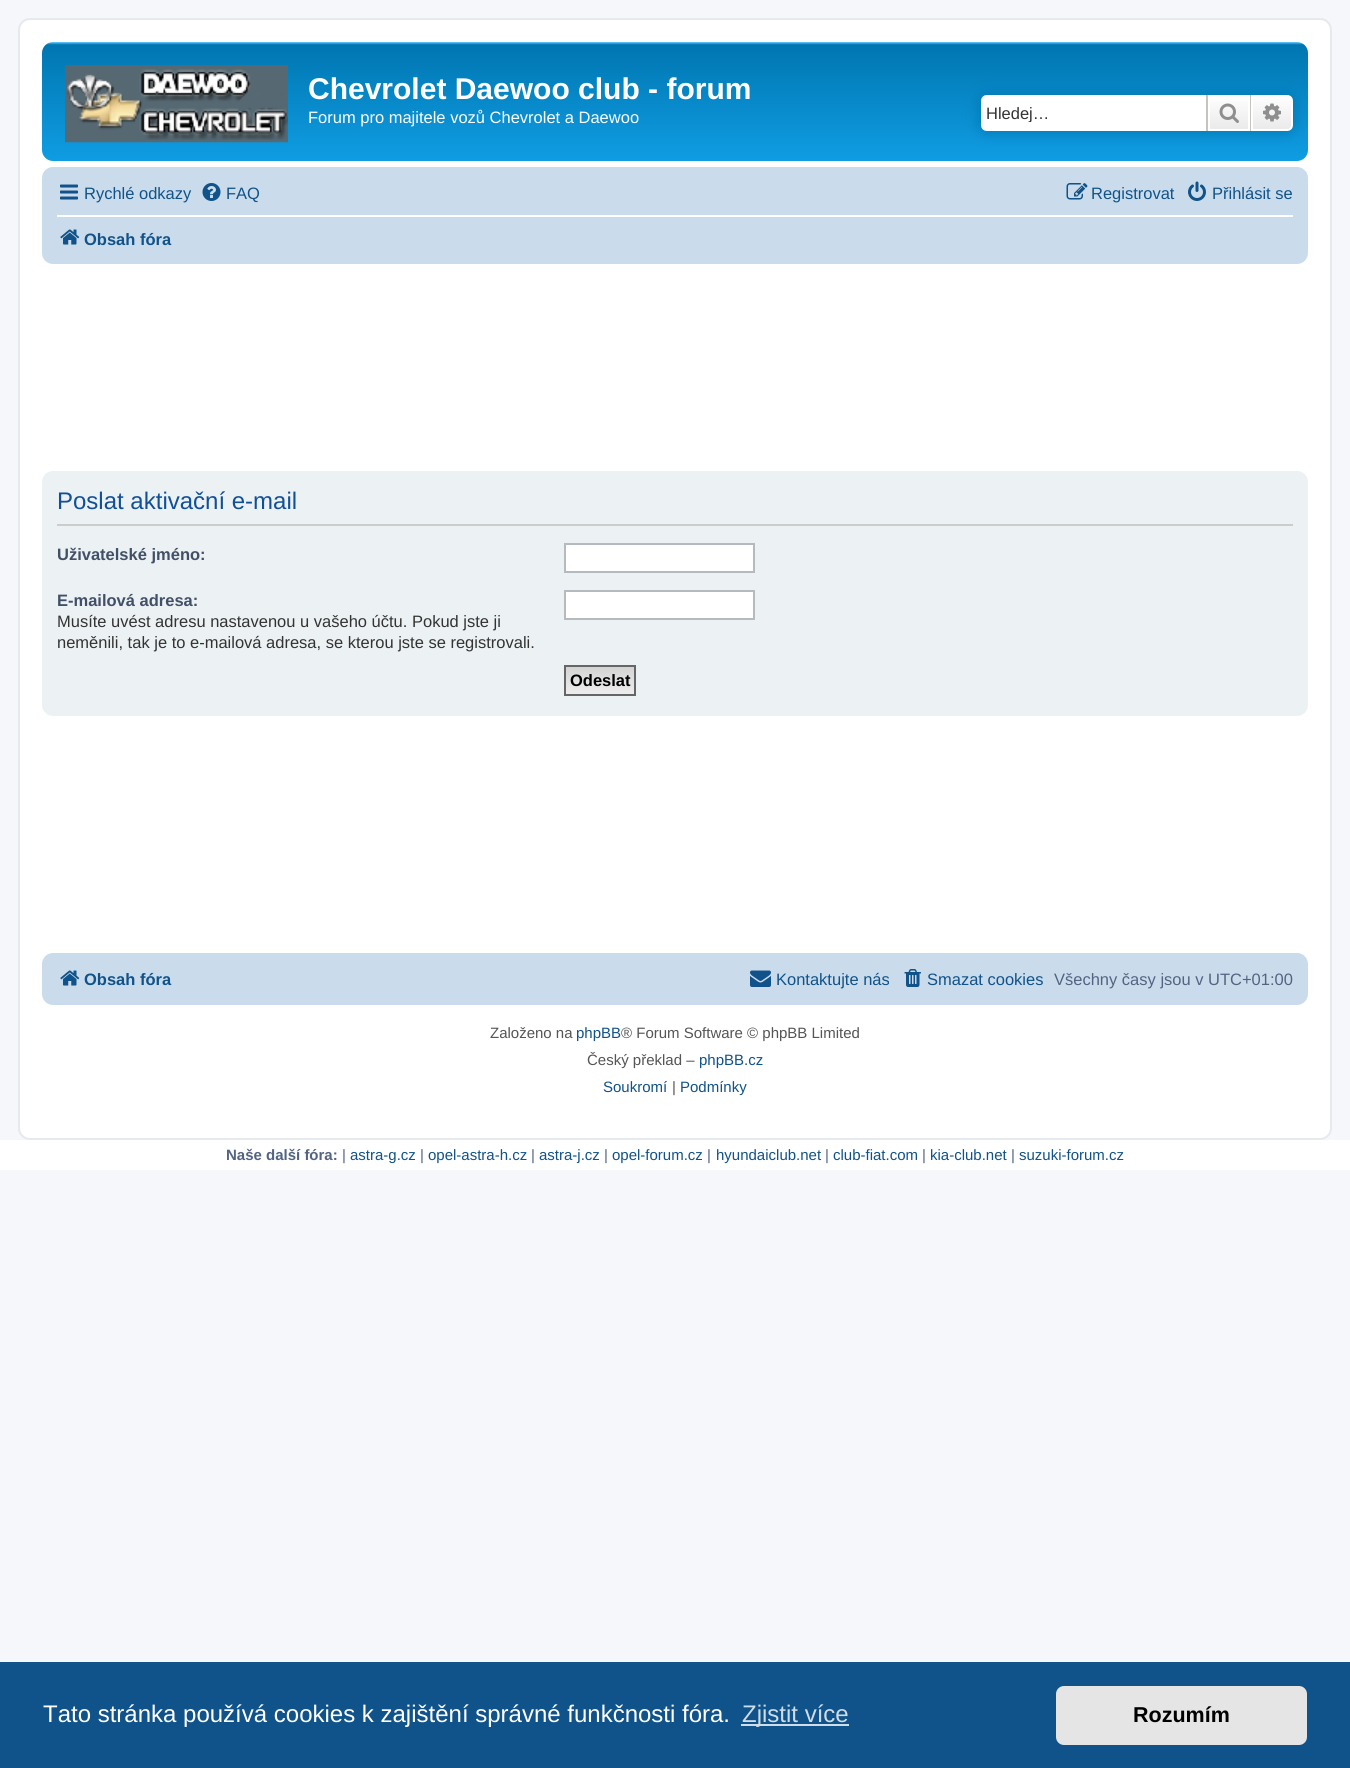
import math
import cairo

surface = cairo.ImageSurface(cairo.FORMAT_RGB24, 1350, 1768)
cr = cairo.Context(surface)
options = cairo.FontOptions()
options.set_hint_metrics(cairo.HINT_METRICS_OFF)
options.set_hint_style(cairo.HINT_STYLE_NONE)
cr.set_font_options(options)
cr.set_miter_limit(4)


def rgb(code):
    cr.set_source_rgb(*(v / 255 for v in bytes.fromhex(code[-6:])))


def rrect(x, y, w, h, r):
    cr.new_sub_path()
    for i, (u, v) in enumerate([(x + w - r, y + h - r), (x + r, y + h - r), (x + r, y + r), (x + w - r, y + r)]):
        cr.arc(u, v, r, i * math.pi / 2, (i + 1) * math.pi / 2)
    cr.close_path()


def soft_shadow(x, y, w, h, r, blur, alpha):
    cr.push_group_with_content(cairo.CONTENT_ALPHA)
    cr.set_operator(cairo.OPERATOR_SOURCE)
    for i in range(15, -16, -2):
        e = blur * i / 6
        if min(w, h) + 2 * e > 0:
            cr.set_source_rgba(0, 0, 0, alpha * math.erfc((i - 1) / 8.5) / 2)
            rrect(x - e, y - e, w + 2 * e, h + 2 * e, max(0, min(r + e + blur * .6, min(w, h) / 2 + e)))
            cr.fill()
    cr.mask(cr.pop_group())


def image(path, x, y, w, h):
    cr.save()
    cr.set_source_surface(cairo.ImageSurface.create_from_png(path), x, y)
    cr.rectangle(x, y, w, h)
    cr.fill()
    cr.restore()


rgb("#f5f7fa")
cr.paint()
rgb("#ffffff")
rrect(19, 19, 1312, 1120, 11)
cr.fill_preserve()
rgb("#e6e9ed")
cr.stroke()
gradient = cairo.LinearGradient(675, 42, 675, 180)
gradient.add_color_stop_rgba(0, 0.416, 0.808, 1, 1)
gradient.add_color_stop_rgba(0.02, 0, 0.463, 0.694, 1)
gradient.add_color_stop_rgba(1, 0.071, 0.639, 0.922, 1)
cr.set_source(gradient)
rrect(42, 42, 1266, 119, 11)
cr.fill()
image("img/1.png", 65, 65, 223, 78)
rgb("#0075b0")
soft_shadow(981, 95, 312, 36, 6, 7.5, 1)
rgb("#ffffff")
cr.new_path()
cr.move_to(987, 95)
cr.line_to(1206, 95)
cr.line_to(1206, 131)
cr.line_to(987, 131)
cr.curve_to(983.5, 131, 981, 128.5, 981, 125)
cr.line_to(981, 101)
cr.curve_to(981, 97.5, 983.5, 95, 987, 95)
cr.close_path()
cr.fill()
gradient = cairo.LinearGradient(1229, 95, 1229, 131)
gradient.add_color_stop_rgba(0, 1, 1, 1, 1)
gradient.add_color_stop_rgba(1, 0.914, 0.914, 0.914, 1)
cr.set_source(gradient)
cr.rectangle(1210, 97, 38, 32)
cr.fill()
cr.rectangle(1209, 96, 40, 34)
rgb("#ffffff")
cr.stroke()
rgb("#c7c3bf")
cr.rectangle(1250, 95, 1, 36)
cr.fill()
cr.rectangle(1206, 95, 2, 36)
cr.fill()
image("img/2.png", 1219, 103, 20, 20)
gradient = cairo.LinearGradient(1272, 95, 1272, 131)
gradient.add_color_stop_rgba(0, 1, 1, 1, 1)
gradient.add_color_stop_rgba(1, 0.914, 0.914, 0.914, 1)
cr.set_source(gradient)
cr.new_path()
cr.move_to(1252, 96)
cr.line_to(1287, 96)
cr.curve_to(1290, 96, 1292, 98, 1292, 101)
cr.line_to(1292, 125)
cr.curve_to(1292, 128, 1290, 130, 1287, 130)
cr.line_to(1252, 130)
cr.close_path()
cr.fill_preserve()
rgb("#ffffff")
cr.stroke()
image("img/3.png", 1263, 103, 18, 19)
rgb("#cadceb")
rrect(42, 167, 1266, 97, 11)
cr.fill()
image("img/4.png", 60, 184, 18, 16)
image("img/5.png", 202, 183, 19, 18)
image("img/6.png", 1066, 183, 22, 17)
image("img/7.png", 1188, 181, 18, 20)
rgb("#ffffff")
cr.rectangle(57, 215, 1236, 2)
cr.fill()
image("img/8.png", 60, 229, 20, 16)
rgb("#ecf1f3")
rrect(42, 471, 1266, 245, 11)
cr.fill()
rgb("#cccccc")
cr.rectangle(57, 524, 1236, 2)
cr.fill()
rgb("#ffffff")
cr.rectangle(565, 544, 189, 28)
cr.fill_preserve()
rgb("#b4bac0")
cr.stroke()
rgb("#ffffff")
cr.rectangle(565, 591, 189, 28)
cr.fill_preserve()
rgb("#b4bac0")
cr.stroke()
gradient = cairo.LinearGradient(600, 666, 600, 695)
gradient.add_color_stop_rgba(0, 0.824, 0.824, 0.824, 1)
gradient.add_color_stop_rgba(1, 0.937, 0.937, 0.937, 1)
cr.set_source(gradient)
cr.rectangle(566, 667, 68, 27)
cr.fill()
cr.rectangle(565, 666, 70, 29)
rgb("#666666")
cr.stroke()
rgb("#cadceb")
rrect(42, 953, 1266, 52, 11)
cr.fill()
image("img/8.png", 60, 970, 20, 16)
image("img/9.png", 750, 970, 21, 17)
image("img/10.png", 904, 969, 17, 18)
for x, y, w, h, color in [
    (0, 1140, 1350, 30, "#ffffff"),
    (0, 1662, 1350, 106, "#0f538a"),
    (741, 1724, 108, 2, "#cfdde8"),
]:
    rgb(color)
    cr.rectangle(x, y, w, h)
    cr.fill()
rgb("#e5e5e5")
rrect(1056, 1686, 251, 59, 8)
cr.fill()
cr.select_font_face("Liberation Sans", cairo.FONT_SLANT_NORMAL, cairo.FONT_WEIGHT_BOLD)
cr.set_font_size(30)
rgb("#ffffff")
cr.move_to(308, 99)
cr.show_text("Chevrolet Daewoo club - forum")
cr.select_font_face("Liberation Sans")
cr.set_font_size(16.5)
cr.move_to(308, 123)
cr.show_text("Forum pro majitele vozů Chevrolet a Daewoo")
cr.save()
cr.rectangle(986, 104, 210, 18)
cr.clip()
rgb("#333333")
cr.move_to(986, 119)
cr.show_text("Hledej…")
cr.restore()
rgb("#105289")
for x, y, s in [
    (84, 199, "Rychlé odkazy"),
    (226, 199, "FAQ"),
    (1091, 199, "Registrovat"),
    (1212, 199, "Přihlásit se"),
]:
    cr.move_to(x, y)
    cr.show_text(s)
cr.select_font_face("Liberation Sans", cairo.FONT_SLANT_NORMAL, cairo.FONT_WEIGHT_BOLD)
cr.move_to(84, 245)
cr.show_text("Obsah fóra")
cr.select_font_face("Liberation Sans")
cr.set_font_size(24)
rgb("#115098")
cr.move_to(57, 509)
cr.show_text("Poslat aktivační e-mail")
cr.select_font_face("Liberation Sans", cairo.FONT_SLANT_NORMAL, cairo.FONT_WEIGHT_BOLD)
cr.set_font_size(16.5)
rgb("#425067")
cr.move_to(57, 560)
cr.show_text("Uživatelské jméno:")
cr.move_to(57, 606)
cr.show_text("E-mailová adresa:")
cr.select_font_face("Liberation Sans")
rgb("#333333")
cr.move_to(57, 627)
cr.show_text("Musíte uvést adresu nastavenou u vašeho účtu. Pokud jste ji")
cr.move_to(57, 648)
cr.show_text("neměnili, tak je to e-mailová adresa, se kterou jste se registrovali.")
cr.select_font_face("Liberation Sans", cairo.FONT_SLANT_NORMAL, cairo.FONT_WEIGHT_BOLD)
rgb("#000000")
cr.move_to(570, 686)
cr.show_text("Odeslat")
rgb("#105289")
cr.move_to(84, 985)
cr.show_text("Obsah fóra")
cr.select_font_face("Liberation Sans")
cr.move_to(776, 985)
cr.show_text("Kontaktujte nás")
cr.move_to(927, 985)
cr.show_text("Smazat cookies")
rgb("#536482")
cr.move_to(1054, 985)
cr.show_text("Všechny časy jsou v UTC+01:00")
cr.set_font_size(15)
rgb("#555555")
cr.move_to(490, 1038)
cr.show_text("Založeno na")
rgb("#105289")
cr.move_to(576, 1038)
cr.show_text("phpBB")
rgb("#555555")
cr.move_to(621, 1038)
cr.show_text("® Forum Software © phpBB Limited")
cr.move_to(587, 1065)
cr.show_text("Český překlad –")
rgb("#105289")
cr.move_to(699, 1065)
cr.show_text("phpBB.cz")
cr.move_to(603, 1092)
cr.show_text("Soukromí")
rgb("#555555")
cr.move_to(672, 1092)
cr.show_text("|")
rgb("#105289")
cr.move_to(680, 1092)
cr.show_text("Podmínky")
cr.select_font_face("Liberation Sans", cairo.FONT_SLANT_NORMAL, cairo.FONT_WEIGHT_BOLD)
rgb("#536482")
cr.move_to(226, 1160)
cr.show_text("Naše další fóra:")
cr.select_font_face("Liberation Sans")
cr.move_to(342, 1160)
cr.show_text("|")
rgb("#105289")
cr.move_to(350, 1160)
cr.show_text("astra-g.cz")
rgb("#536482")
cr.move_to(420, 1160)
cr.show_text("|")
rgb("#105289")
cr.move_to(428, 1160)
cr.show_text("opel-astra-h.cz")
rgb("#536482")
cr.move_to(531, 1160)
cr.show_text("|")
rgb("#105289")
cr.move_to(539, 1160)
cr.show_text("astra-j.cz")
rgb("#536482")
cr.move_to(604, 1160)
cr.show_text("|")
rgb("#105289")
cr.move_to(612, 1160)
cr.show_text("opel-forum.cz")
rgb("#536482")
cr.move_to(707, 1160)
cr.show_text("|")
rgb("#105289")
cr.move_to(716, 1160)
cr.show_text("hyundaiclub.net")
rgb("#536482")
cr.move_to(825, 1160)
cr.show_text("|")
rgb("#105289")
cr.move_to(833, 1160)
cr.show_text("club-fiat.com")
rgb("#536482")
cr.move_to(922, 1160)
cr.show_text("|")
rgb("#105289")
cr.move_to(930, 1160)
cr.show_text("kia-club.net")
rgb("#536482")
cr.move_to(1011, 1160)
cr.show_text("|")
rgb("#105289")
cr.move_to(1019, 1160)
cr.show_text("suzuki-forum.cz")
cr.set_font_size(24)
rgb("#ffffff")
cr.move_to(43, 1722)
cr.show_text("Tato stránka používá cookies k zajištění správné funkčnosti fóra.")
rgb("#cfdde8")
cr.move_to(742, 1722)
cr.show_text("Zjistit více")
cr.select_font_face("Liberation Sans", cairo.FONT_SLANT_NORMAL, cairo.FONT_WEIGHT_BOLD)
cr.set_font_size(21.5)
rgb("#000000")
cr.move_to(1133, 1722)
cr.show_text("Rozumím")
surface.write_to_png("page.png")
